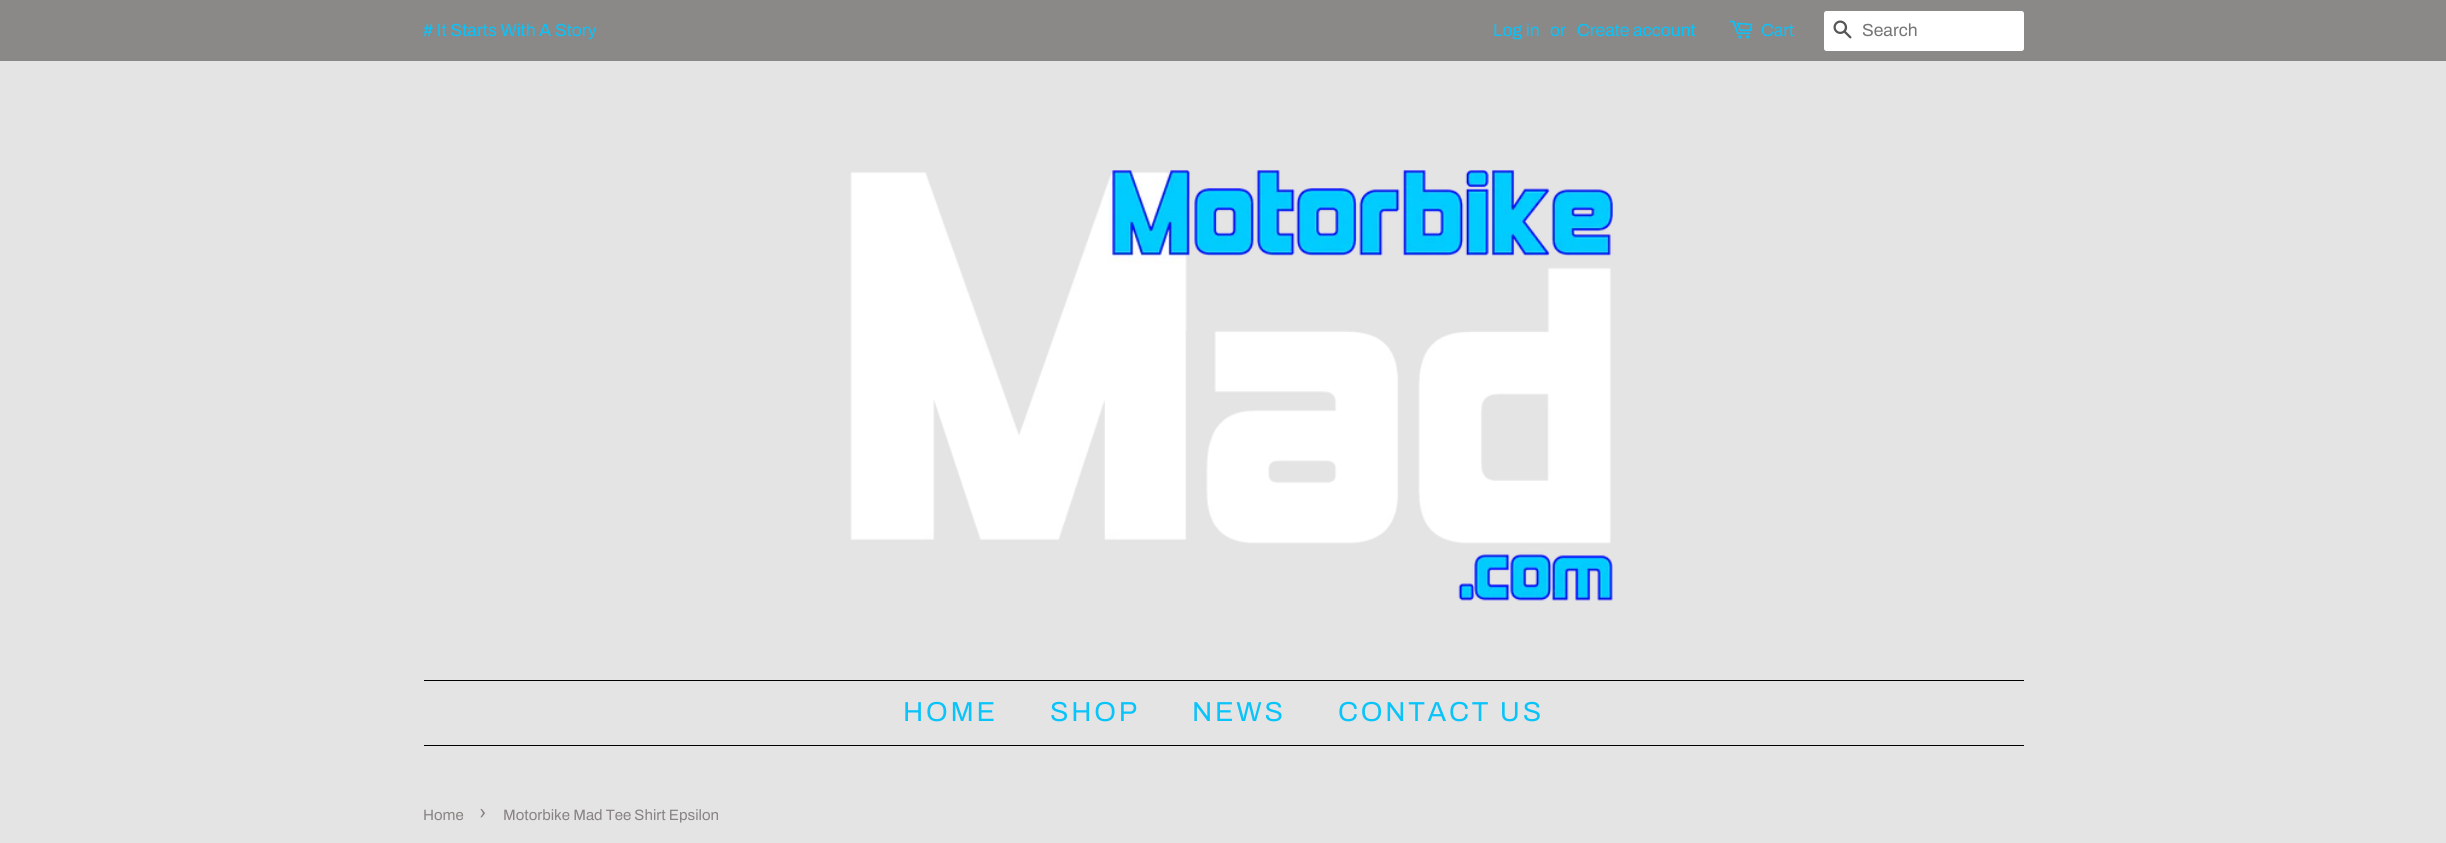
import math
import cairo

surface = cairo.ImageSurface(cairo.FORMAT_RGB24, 2446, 843)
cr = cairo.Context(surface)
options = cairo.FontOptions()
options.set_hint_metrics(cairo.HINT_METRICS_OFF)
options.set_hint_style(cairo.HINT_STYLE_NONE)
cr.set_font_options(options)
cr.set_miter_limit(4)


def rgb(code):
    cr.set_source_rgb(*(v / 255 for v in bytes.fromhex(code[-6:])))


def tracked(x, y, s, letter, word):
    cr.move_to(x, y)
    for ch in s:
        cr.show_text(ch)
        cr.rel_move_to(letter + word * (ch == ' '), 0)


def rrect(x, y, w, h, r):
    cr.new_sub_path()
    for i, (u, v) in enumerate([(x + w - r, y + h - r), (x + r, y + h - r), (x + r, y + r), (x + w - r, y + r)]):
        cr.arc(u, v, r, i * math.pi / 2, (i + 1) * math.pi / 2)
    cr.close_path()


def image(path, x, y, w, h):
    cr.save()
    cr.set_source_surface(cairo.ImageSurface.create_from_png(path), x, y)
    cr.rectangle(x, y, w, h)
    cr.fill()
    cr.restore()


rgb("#e4e4e4")
cr.paint()
rgb("#8b8888")
cr.rectangle(0, 0, 2446, 61)
cr.fill()
image("img/1.png", 1729, 20, 24, 19)
rgb("#ffffff")
rrect(1824, 11, 200, 40, 2.5)
cr.fill()
image("img/2.png", 1833, 20, 19, 19)
image("img/3.png", 850, 170, 763, 431)
rgb("#000000")
cr.rectangle(424, 680, 1600, 1)
cr.fill()
cr.rectangle(424, 745, 1600, 1)
cr.fill()
cr.save()
cr.rectangle(424, 16, 172, 30)
cr.clip()
cr.select_font_face("Archivo")
cr.set_font_size(17.5)
rgb("#09c3f9")
cr.move_to(423, 36)
cr.show_text("# It Starts With A Story")
cr.restore()
cr.select_font_face("Archivo")
cr.set_font_size(17.5)
rgb("#09c3f9")
for x, y, s in [
    (1493, 36, "Log in"),
    (1550, 36, "or"),
    (1577, 36, "Create account"),
    (1761, 36, "Cart"),
]:
    cr.move_to(x, y)
    cr.show_text(s)
rgb("#757575")
cr.move_to(1862, 36)
cr.show_text("Search")
cr.set_font_size(27.5)
rgb("#09c3f9")
for x, y, s in [
    (903, 721, "HOME"),
    (1050, 721, "SHOP"),
    (1192, 721, "NEWS"),
    (1338, 721, "CONTACT US"),
]:
    tracked(x, y, s, 2.75, 0)
cr.set_font_size(15)
rgb("#898383")
cr.move_to(423, 820)
cr.show_text("Home")
cr.set_font_size(21)
cr.move_to(479, 820)
cr.show_text("›")
cr.set_font_size(15)
cr.move_to(503, 820)
cr.show_text("Motorbike Mad Tee Shirt Epsilon")
surface.write_to_png("page.png")
